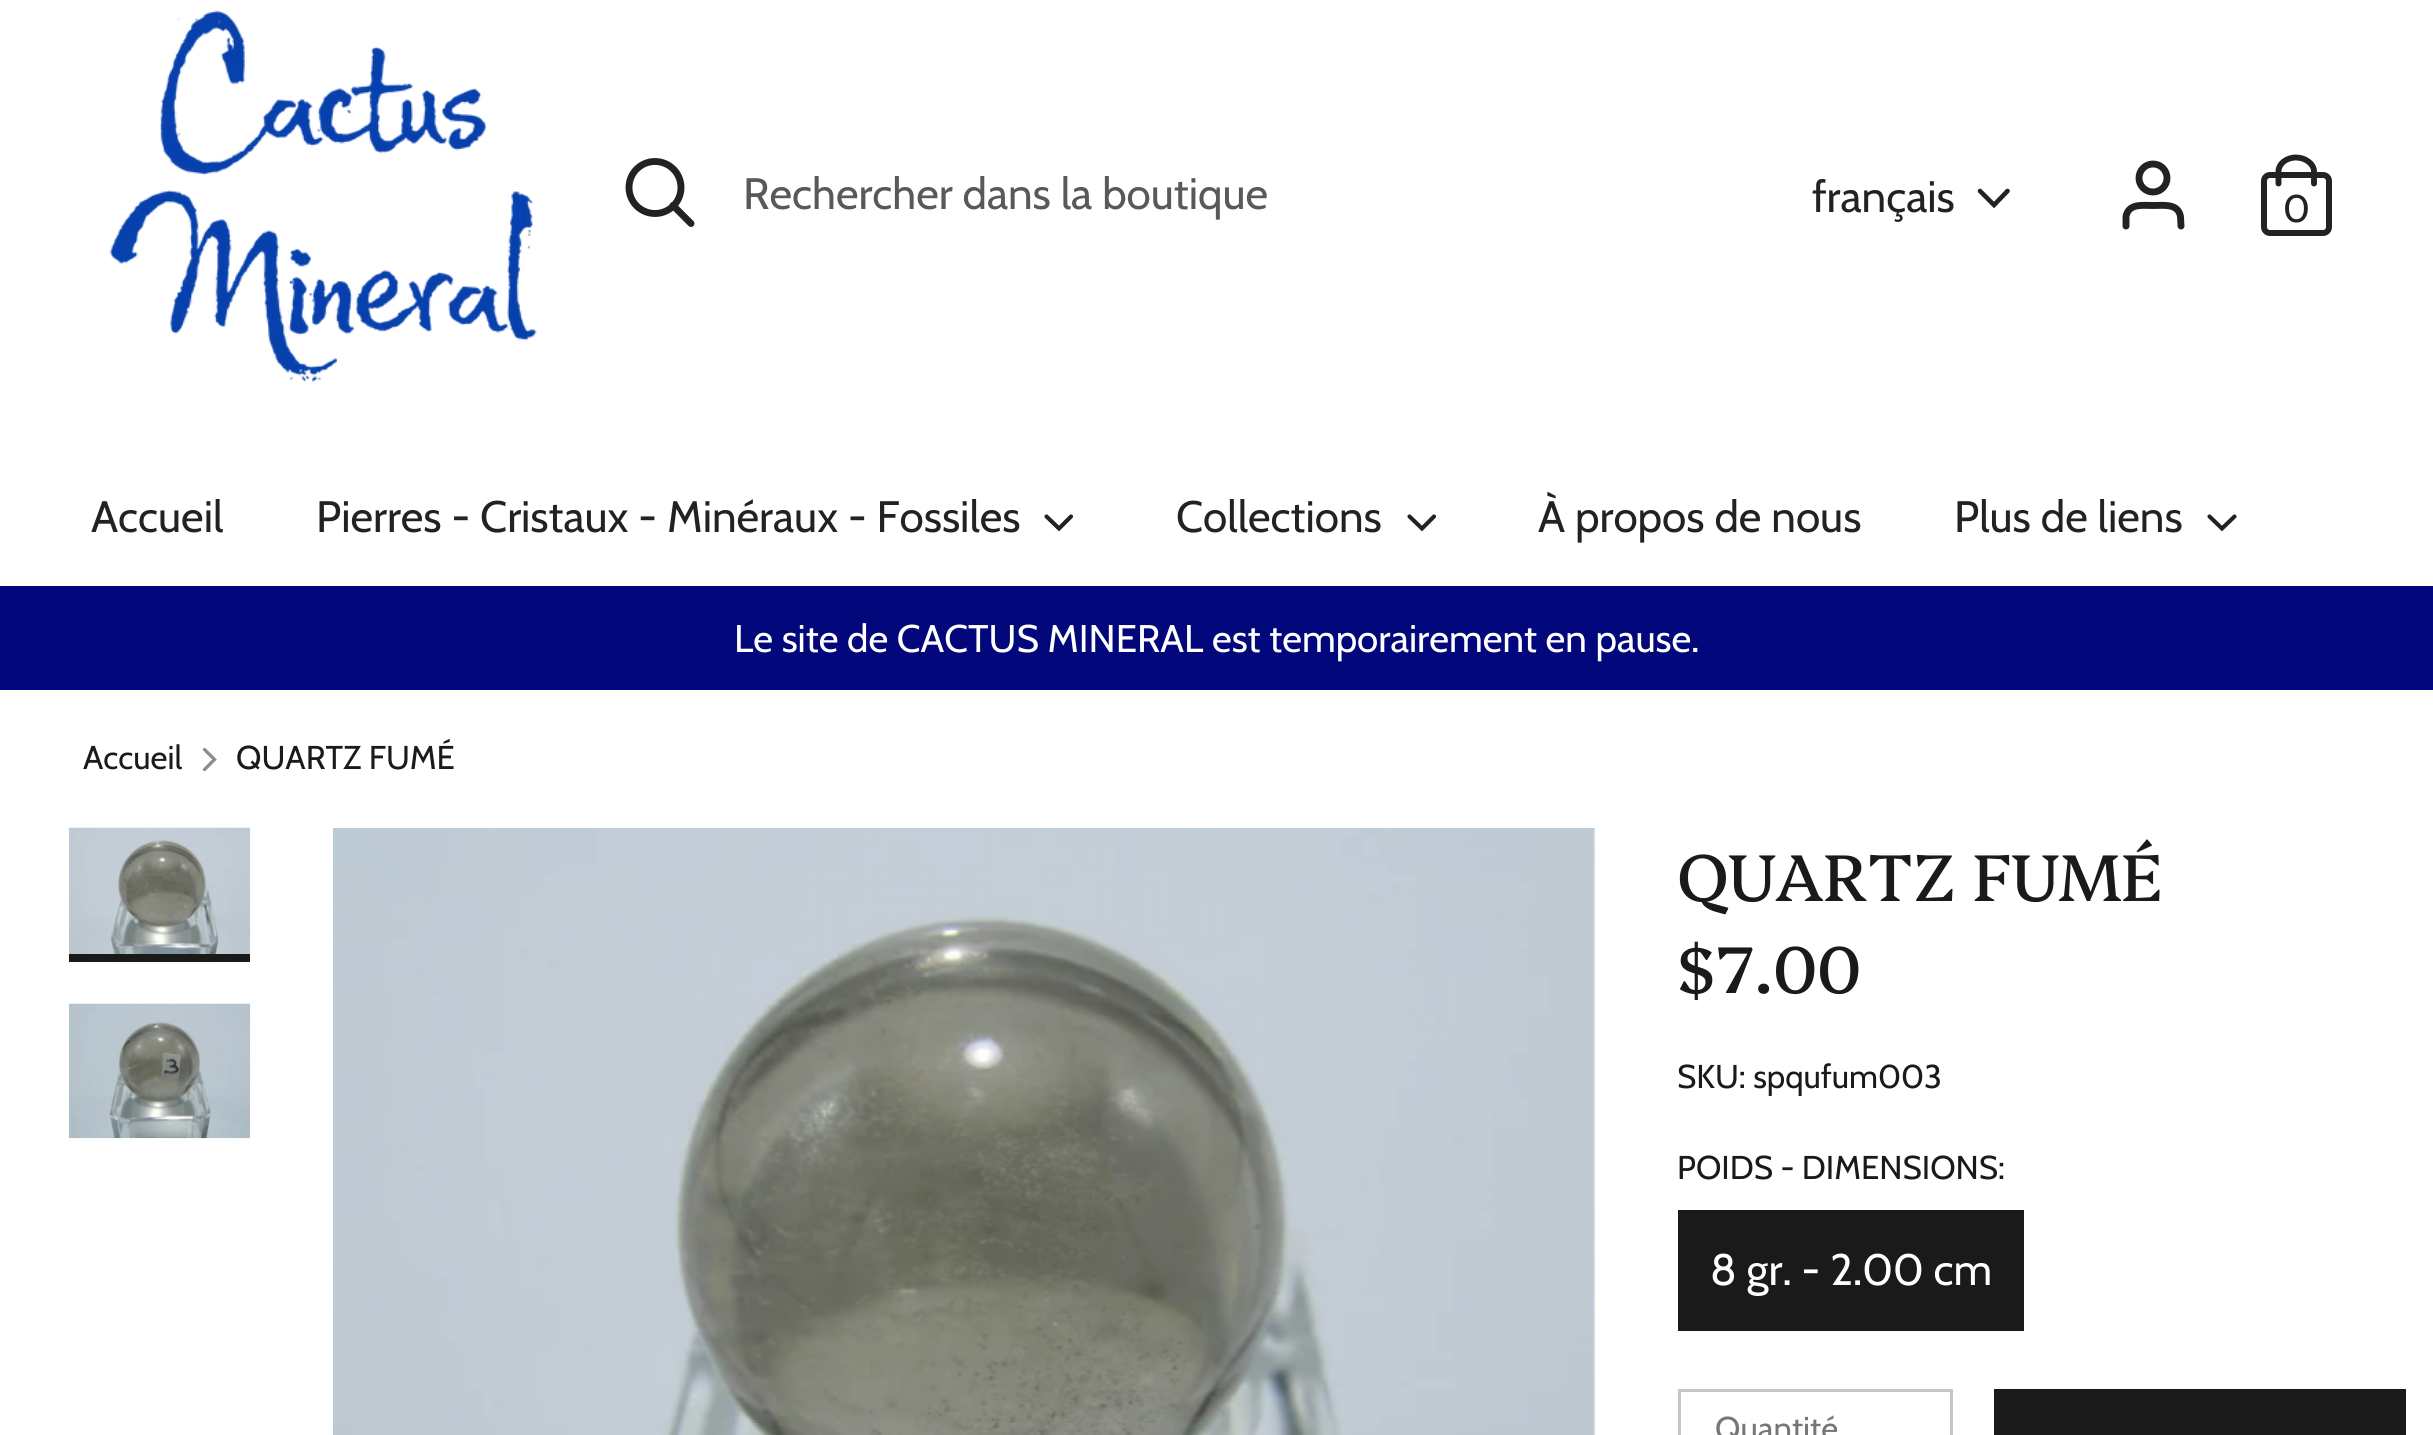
import math
import cairo

surface = cairo.ImageSurface(cairo.FORMAT_RGB24, 2433, 1435)
cr = cairo.Context(surface)
options = cairo.FontOptions()
options.set_hint_metrics(cairo.HINT_METRICS_OFF)
options.set_hint_style(cairo.HINT_STYLE_NONE)
cr.set_font_options(options)
cr.set_miter_limit(4)


def rgb(code):
    cr.set_source_rgb(*(v / 255 for v in bytes.fromhex(code[-6:])))


def rrect(x, y, w, h, r):
    cr.new_sub_path()
    for i, (u, v) in enumerate([(x + w - r, y + h - r), (x + r, y + h - r), (x + r, y + r), (x + w - r, y + r)]):
        cr.arc(u, v, r, i * math.pi / 2, (i + 1) * math.pi / 2)
    cr.close_path()


def image(path, x, y, w, h):
    cr.save()
    cr.set_source_surface(cairo.ImageSurface.create_from_png(path), x, y)
    cr.rectangle(x, y, w, h)
    cr.fill()
    cr.restore()


rgb("#ffffff")
cr.paint()
image("img/1.png", 109, 10, 428, 373)
cr.arc(655, 187.5, 26, 0, 2 * math.pi)
rgb("#222222")
cr.set_line_width(6.9)
cr.stroke()
cr.new_path()
cr.move_to(691, 223.5)
cr.line_to(673, 205.5)
cr.set_line_cap(cairo.LINE_CAP_ROUND)
cr.stroke()
cr.new_path()
cr.move_to(1980, 191)
cr.line_to(1994, 205)
cr.line_to(2007.5, 191)
cr.set_line_width(4.6)
cr.stroke()
cr.new_path()
cr.move_to(2181, 226)
cr.line_to(2180.5, 216.5)
cr.curve_to(2178, 203, 2163.5, 205.5, 2153, 205.5)
cr.curve_to(2143, 205.5, 2128.5, 203, 2126, 216.5)
cr.line_to(2126, 226)
cr.set_line_width(6.9)
cr.stroke()
cr.arc(2153, 178, 14, 0, 2 * math.pi)
cr.set_line_cap(cairo.LINE_CAP_BUTT)
cr.stroke()
rrect(2264, 175, 65, 58, 6)
cr.set_line_width(6)
cr.stroke()
cr.new_path()
cr.move_to(2278.5, 183.5)
cr.line_to(2278.5, 171.5)
cr.curve_to(2278.5, 164, 2286, 157.5, 2296, 157.5)
cr.curve_to(2305.5, 157.5, 2314, 164, 2314, 171.5)
cr.line_to(2314, 183.5)
cr.set_line_width(5.9)
cr.set_line_cap(cairo.LINE_CAP_ROUND)
cr.stroke()
cr.new_path()
cr.move_to(1046.5, 516.5)
cr.line_to(1059, 528.5)
cr.line_to(1071, 516.5)
cr.set_line_width(4.1)
cr.stroke()
cr.new_path()
cr.move_to(1409.5, 516.5)
cr.line_to(1422, 528.5)
cr.line_to(1434, 516.5)
cr.stroke()
cr.new_path()
cr.move_to(2209.5, 516.5)
cr.line_to(2222, 528.5)
cr.line_to(2234.5, 516.5)
cr.stroke()
rgb("#02087c")
cr.rectangle(0, 586, 2433, 104)
cr.fill()
cr.new_path()
cr.move_to(204.5, 769.5)
cr.line_to(214.5, 759.5)
cr.line_to(204.5, 749.5)
rgb("#8d8d8d")
cr.set_line_width(3.3)
cr.stroke()
image("img/2.png", 68, 827, 183, 136)
rgb("#1a1a1a")
cr.rectangle(69, 954, 181, 8)
cr.fill()
image("img/3.png", 68, 1003, 183, 136)
image("img/4.png", 333, 828, 1262, 607)
cr.rectangle(1678, 1210, 346, 121)
cr.fill()
cr.rectangle(1679.5, 1390.5, 272, 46)
rgb("#c6c6c6")
cr.set_line_width(3)
cr.set_line_cap(cairo.LINE_CAP_BUTT)
cr.stroke()
cr.rectangle(1995.5, 1390.5, 409, 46)
rgb("#1a1a1a")
cr.stroke()
cr.rectangle(1997, 1392, 406, 43)
cr.fill()
cr.select_font_face("Cabin")
cr.set_font_size(44)
rgb("#595959")
cr.move_to(743, 209)
cr.show_text("Rechercher dans la boutique")
rgb("#222222")
cr.move_to(1812, 212)
cr.show_text("français")
cr.set_font_size(38.5)
cr.move_to(2283, 222)
cr.show_text("0")
cr.set_font_size(44)
for x, y, s in [
    (91, 532, "Accueil"),
    (316, 532, "Pierres - Cristaux - Minéraux - Fossiles"),
    (1176, 532, "Collections"),
    (1538, 532, "À propos de nous"),
    (1954, 532, "Plus de liens"),
]:
    cr.move_to(x, y)
    cr.show_text(s)
cr.set_font_size(38.5)
rgb("#ffffff")
cr.move_to(734, 652)
cr.show_text("Le site de CACTUS MINERAL est temporairement en pause.")
cr.set_font_size(33)
rgb("#1a1a1a")
cr.move_to(83, 769)
cr.show_text("Accueil")
cr.move_to(236, 769)
cr.show_text("QUARTZ FUMÉ")
cr.select_font_face("Platypi")
cr.set_font_size(66)
cr.move_to(1677, 901)
cr.show_text("QUARTZ FUMÉ")
cr.move_to(1677, 993)
cr.show_text("$7.00")
cr.select_font_face("Cabin")
cr.set_font_size(33)
cr.move_to(1677, 1088)
cr.show_text("SKU: spqufum003")
cr.move_to(1677, 1179)
cr.show_text("POIDS - DIMENSIONS:")
cr.set_font_size(44)
rgb("#ffffff")
cr.move_to(1710, 1285)
cr.show_text("8 gr. - 2.00 cm")
cr.set_font_size(33)
rgb("#767676")
cr.move_to(1715, 1440)
cr.show_text("Quantité")
surface.write_to_png("page.png")
